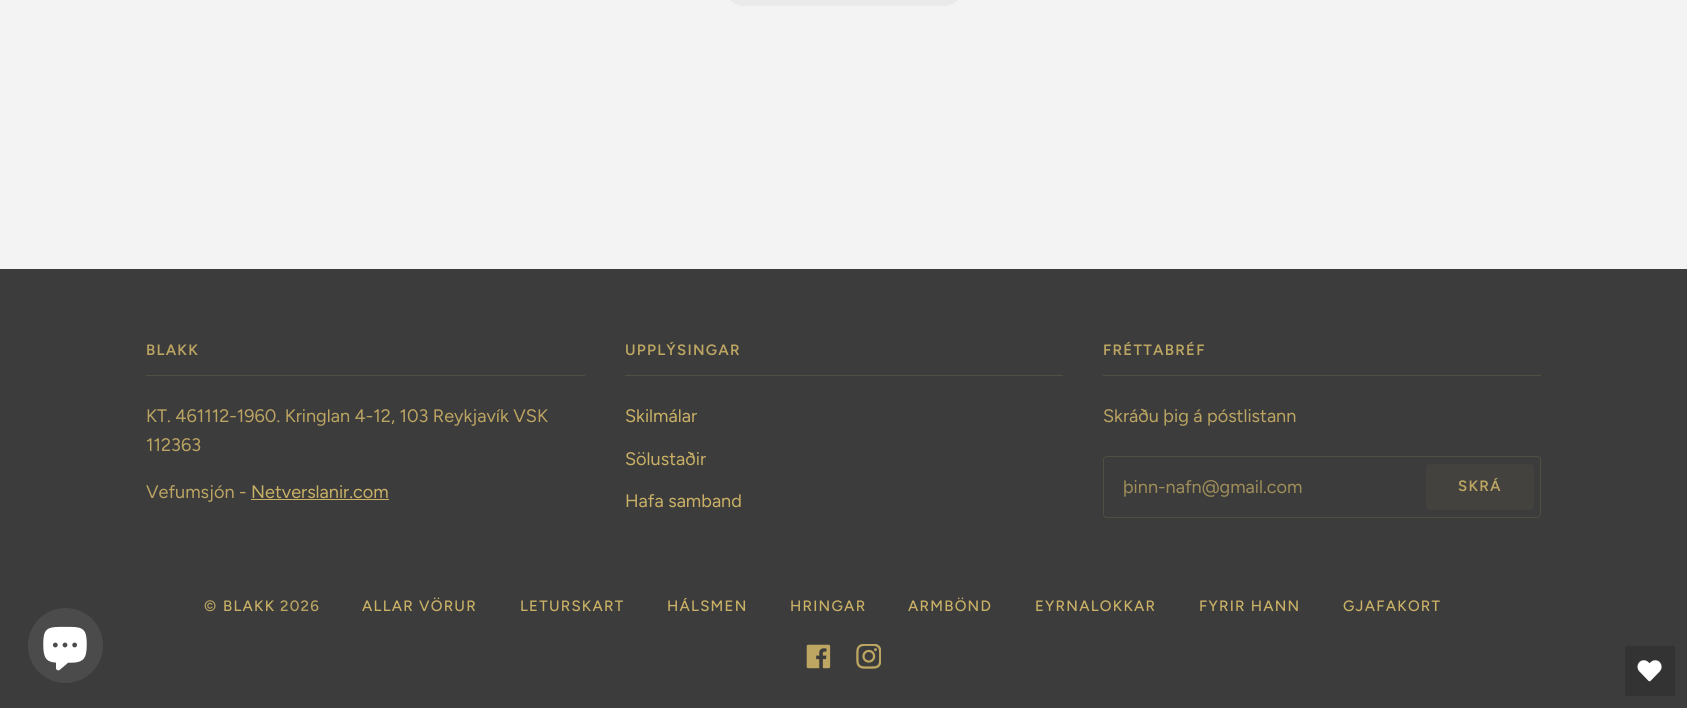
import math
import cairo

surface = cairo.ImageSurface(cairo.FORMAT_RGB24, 1687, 708)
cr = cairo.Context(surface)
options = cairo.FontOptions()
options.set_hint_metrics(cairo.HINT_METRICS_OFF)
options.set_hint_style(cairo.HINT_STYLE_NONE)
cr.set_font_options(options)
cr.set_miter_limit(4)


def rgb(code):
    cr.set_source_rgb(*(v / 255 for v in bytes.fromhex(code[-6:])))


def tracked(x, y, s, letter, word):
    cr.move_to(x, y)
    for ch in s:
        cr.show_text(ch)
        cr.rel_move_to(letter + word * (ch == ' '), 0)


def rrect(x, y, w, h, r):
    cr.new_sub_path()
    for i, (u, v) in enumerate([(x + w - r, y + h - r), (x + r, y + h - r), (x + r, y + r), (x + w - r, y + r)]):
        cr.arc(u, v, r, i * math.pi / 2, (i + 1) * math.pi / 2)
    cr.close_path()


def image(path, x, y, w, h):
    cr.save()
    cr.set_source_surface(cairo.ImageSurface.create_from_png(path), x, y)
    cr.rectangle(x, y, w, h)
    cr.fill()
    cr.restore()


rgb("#f3f3f3")
cr.paint()
rgb("#eaeaea")
rrect(725, -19, 238, 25, 19)
cr.fill()
for x, y, w, h, color in [
    (0, 269, 1687, 439, "#3c3c3c"),
    (146, 375, 439, 1, "#514e42"),
    (251, 499, 138, 1, "#cab166"),
    (625, 375, 438, 1, "#514e42"),
    (1103, 375, 438, 1, "#514e42"),
]:
    rgb(color)
    cr.rectangle(x, y, w, h)
    cr.fill()
rrect(1103.5, 456.5, 437, 61, 3.5)
cr.set_line_width(1)
cr.stroke()
rgb("#43423e")
rrect(1426, 464, 108, 46, 4)
cr.fill()
image("img/1.png", 806, 644, 25, 25)
image("img/2.png", 856, 644, 25, 25)
rgb("#4b4b4b")
cr.arc(65.5, 645.5, 37.5, 0, 2 * math.pi)
cr.fill()
image("img/3.png", 43, 626, 44, 45)
rgb("#333333")
cr.rectangle(1625, 646, 50, 50)
cr.fill()
image("img/4.png", 1637, 660, 25, 22)
cr.select_font_face("Figtree SemiBold")
cr.set_font_size(15)
rgb("#bca562")
tracked(146, 355, "BLAKK", 1.25, 0)
cr.select_font_face("Figtree")
cr.set_font_size(18.1)
for x, y, s in [
    (146, 422, "KT. 461112-1960. Kringlan 4-12, 103 Reykjavík VSK"),
    (146, 451, "112363"),
    (146, 498, "Vefumsjón -"),
]:
    cr.move_to(x, y)
    cr.show_text(s)
rgb("#cab166")
cr.move_to(251, 498)
cr.show_text("Netverslanir.com")
cr.select_font_face("Figtree SemiBold")
cr.set_font_size(15)
rgb("#bca562")
tracked(625, 355, "UPPLÝSINGAR", 1.25, 0)
cr.select_font_face("Figtree")
cr.set_font_size(18.1)
rgb("#cab166")
for x, y, s in [
    (625, 422, "Skilmálar"),
    (625, 465, "Sölustaðir"),
    (625, 507, "Hafa samband"),
]:
    cr.move_to(x, y)
    cr.show_text(s)
cr.select_font_face("Figtree SemiBold")
cr.set_font_size(15)
rgb("#bca562")
tracked(1103, 355, "FRÉTTABRÉF", 1.25, 0)
cr.select_font_face("Figtree")
cr.set_font_size(18.1)
cr.move_to(1103, 422)
cr.show_text("Skráðu þig á póstlistann")
rgb("#9f8e59")
cr.move_to(1123, 493)
cr.show_text("þinn-nafn@gmail.com")
cr.select_font_face("Figtree SemiBold")
cr.set_font_size(15)
rgb("#bca562")
tracked(1458, 491, "SKRÁ", 1.25, 0)
cr.select_font_face("Figtree Medium")
tracked(204, 611, "©", 1.25, 0)
rgb("#cab166")
tracked(223, 611, "BLAKK", 1.25, 0)
rgb("#bca562")
tracked(280, 611, "2026", 1.25, 0)
rgb("#cab166")
for x, y, s in [
    (362, 611, "ALLAR VÖRUR"),
    (520, 611, "LETURSKART"),
    (667, 611, "HÁLSMEN"),
    (790, 611, "HRINGAR"),
    (908, 611, "ARMBÖND"),
    (1035, 611, "EYRNALOKKAR"),
    (1199, 611, "FYRIR HANN"),
    (1343, 611, "GJAFAKORT"),
]:
    tracked(x, y, s, 1.25, 0)
surface.write_to_png("page.png")
